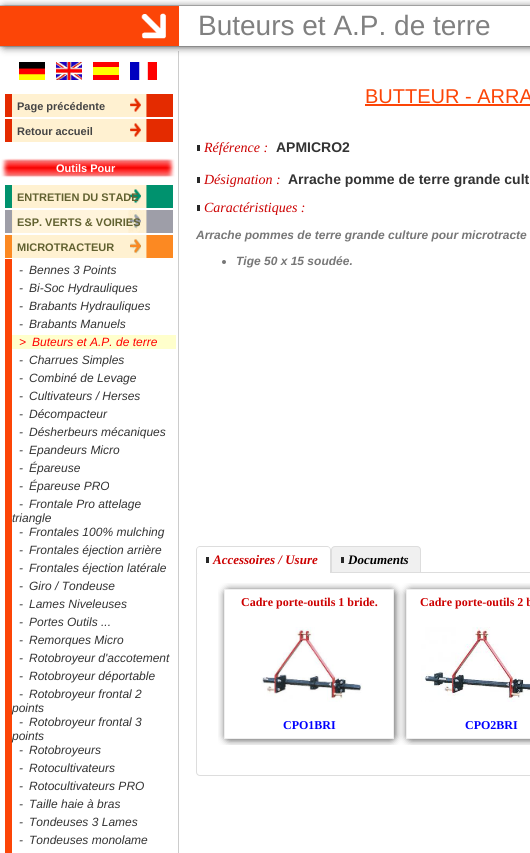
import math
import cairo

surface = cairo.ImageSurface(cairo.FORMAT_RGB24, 530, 853)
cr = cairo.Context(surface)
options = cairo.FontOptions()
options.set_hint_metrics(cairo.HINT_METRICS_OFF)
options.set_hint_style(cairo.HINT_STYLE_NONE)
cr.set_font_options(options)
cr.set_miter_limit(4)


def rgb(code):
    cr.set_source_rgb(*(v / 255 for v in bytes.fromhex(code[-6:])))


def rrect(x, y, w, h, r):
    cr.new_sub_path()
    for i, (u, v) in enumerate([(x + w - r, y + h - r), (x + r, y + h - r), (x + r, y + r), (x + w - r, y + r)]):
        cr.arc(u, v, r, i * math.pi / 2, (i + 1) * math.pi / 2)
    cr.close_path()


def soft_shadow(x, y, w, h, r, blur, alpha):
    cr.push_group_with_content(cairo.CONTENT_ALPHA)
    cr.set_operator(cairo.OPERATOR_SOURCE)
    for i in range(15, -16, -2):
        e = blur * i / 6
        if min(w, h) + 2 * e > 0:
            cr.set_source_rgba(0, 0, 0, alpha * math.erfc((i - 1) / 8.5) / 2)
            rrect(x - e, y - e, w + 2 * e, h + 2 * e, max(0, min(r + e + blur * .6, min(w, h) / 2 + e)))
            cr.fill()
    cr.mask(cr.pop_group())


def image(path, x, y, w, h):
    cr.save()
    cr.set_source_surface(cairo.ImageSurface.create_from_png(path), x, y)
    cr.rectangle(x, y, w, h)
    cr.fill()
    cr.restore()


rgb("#ffffff")
cr.paint()
for x, y, w, h, color in [
    (0, 5, 530, 1, "#cccccc"),
    (0, 46, 530, 1, "#cccccc"),
    (178, 51, 1, 802, "#cccccc"),
]:
    rgb(color)
    cr.rectangle(x, y, w, h)
    cr.fill()
cr.save()
cr.set_fill_rule(cairo.FILL_RULE_EVEN_ODD)
cr.new_path()
cr.move_to(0, 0)
cr.line_to(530, 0)
cr.line_to(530, 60)
cr.line_to(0, 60)
cr.close_path()
cr.move_to(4, 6)
cr.line_to(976, 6)
cr.curve_to(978, 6, 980, 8, 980, 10)
cr.line_to(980, 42)
cr.curve_to(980, 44, 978, 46, 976, 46)
cr.line_to(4, 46)
cr.curve_to(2, 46, 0, 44, 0, 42)
cr.line_to(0, 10)
cr.curve_to(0, 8, 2, 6, 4, 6)
cr.close_path()
cr.clip()
rgb("#555555")
soft_shadow(1, 7, 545, 40, 4, 4, 1)
cr.restore()
rgb("#fc4507")
cr.rectangle(0, 6, 179, 40)
cr.fill()
image("img/1.png", 141, 13, 25, 26)
image("img/2.png", 19, 62, 26, 18)
image("img/3.png", 56, 62, 26, 18)
image("img/4.png", 93, 62, 26, 18)
image("img/5.png", 130, 62, 27, 18)
image("img/6.png", 5, 94, 168, 23)
image("img/6.png", 5, 119, 168, 23)
image("img/7.png", 1, 158, 174, 20)
image("img/8.png", 5, 185, 168, 23)
image("img/9.png", 5, 210, 168, 23)
image("img/10.png", 5, 235, 168, 23)
for x, y, w, h, color in [
    (5, 259, 7, 594, "#fc4507"),
    (12, 335, 164, 14, "#ffffcc"),
    (365, 104, 165, 2, "#fc4507"),
    (197, 145, 3, 6, "#282828"),
    (197, 177, 3, 6, "#282828"),
    (197, 205, 3, 6, "#282828"),
]:
    rgb(color)
    cr.rectangle(x, y, w, h)
    cr.fill()
rgb("#777777")
cr.arc(224, 262, 2, 0, 2 * math.pi)
cr.fill()
cr.new_path()
cr.move_to(198, 572.5)
cr.line_to(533, 572.5)
cr.curve_to(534, 572.5, 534.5, 573, 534.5, 574)
cr.line_to(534.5, 772)
cr.curve_to(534.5, 774, 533, 775.5, 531, 775.5)
cr.line_to(200, 775.5)
cr.curve_to(198, 775.5, 196.5, 774, 196.5, 772)
cr.line_to(196.5, 574)
cr.curve_to(196.5, 573, 197, 572.5, 198, 572.5)
cr.close_path()
rgb("#dddddd")
cr.set_line_width(1)
cr.stroke()
rgb("#ffffff")
cr.new_path()
cr.move_to(200, 547)
cr.line_to(327, 547)
cr.curve_to(328.5, 547, 330, 548.5, 330, 550)
cr.line_to(330, 573)
cr.line_to(197, 573)
cr.line_to(197, 550)
cr.curve_to(197, 548.5, 198.5, 547, 200, 547)
cr.close_path()
cr.fill()
rgb("#dddddd")
cr.set_fill_rule(cairo.FILL_RULE_EVEN_ODD)
cr.new_path()
cr.move_to(200, 546)
cr.line_to(327, 546)
cr.curve_to(329, 546, 331, 548, 331, 550)
cr.line_to(331, 573)
cr.line_to(196, 573)
cr.line_to(196, 550)
cr.curve_to(196, 548, 198, 546, 200, 546)
cr.close_path()
cr.move_to(200, 547)
cr.line_to(327, 547)
cr.curve_to(329, 547, 330, 548, 330, 550)
cr.line_to(330, 573)
cr.line_to(197, 573)
cr.line_to(197, 550)
cr.curve_to(197, 548, 198, 547, 200, 547)
cr.close_path()
cr.fill()
rgb("#282828")
cr.rectangle(206, 557, 3, 6)
cr.fill()
rgb("#f0f0f0")
cr.new_path()
cr.move_to(335, 546.5)
cr.line_to(417, 546.5)
cr.curve_to(419, 546.5, 420.5, 548, 420.5, 550)
cr.line_to(420.5, 572.5)
cr.line_to(331.5, 572.5)
cr.line_to(331.5, 550)
cr.curve_to(331.5, 548, 333, 546.5, 335, 546.5)
cr.close_path()
cr.fill_preserve()
rgb("#dddddd")
cr.stroke()
rgb("#282828")
cr.rectangle(341, 557, 3, 6)
cr.fill()
cr.save()
cr.set_fill_rule(cairo.FILL_RULE_WINDING)
cr.rectangle(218, 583, 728, 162)
cr.clip()
rgb("#555555")
soft_shadow(225, 590, 170, 150, 4, 4, 1)
cr.restore()
for x, y, w, h, color in [
    (225, 590, 168, 148, "#ffffff"),
    (224, 589, 170, 1, "#efefef"),
    (393, 589, 1, 150, "#efefef"),
    (224, 589, 1, 150, "#efefef"),
]:
    rgb(color)
    cr.rectangle(x, y, w, h)
    cr.fill()
image("img/11.png", 261, 627, 102, 75)
cr.rectangle(225, 738, 168, 1)
cr.fill()
cr.save()
cr.set_fill_rule(cairo.FILL_RULE_WINDING)
cr.rectangle(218, 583, 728, 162)
cr.clip()
rgb("#555555")
soft_shadow(407, 590, 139, 150, 4, 4, 1)
cr.restore()
for x, y, w, h, color in [
    (407, 590, 123, 148, "#ffffff"),
    (406, 589, 124, 1, "#efefef"),
    (406, 589, 1, 150, "#efefef"),
]:
    rgb(color)
    cr.rectangle(x, y, w, h)
    cr.fill()
image("img/12.png", 421, 627, 109, 75)
cr.rectangle(407, 738, 123, 1)
cr.fill()
cr.select_font_face("Liberation Sans")
cr.set_font_size(28)
rgb("#808080")
cr.move_to(198, 35)
cr.show_text("Buteurs et A.P. de terre")
cr.select_font_face("Liberation Sans", cairo.FONT_SLANT_NORMAL, cairo.FONT_WEIGHT_BOLD)
cr.set_font_size(11)
rgb("#444444")
cr.move_to(17, 110)
cr.show_text("Page précédente")
cr.move_to(17, 135)
cr.show_text("Retour accueil")
rgb("#ffffff")
cr.move_to(56, 172)
cr.show_text("Outils Pour")
rgb("#616130")
for x, y, s in [
    (17, 201, "ENTRETIEN DU STADE"),
    (17, 226, "ESP. VERTS & VOIRIES"),
    (17, 251, "MICROTRACTEUR"),
]:
    cr.move_to(x, y)
    cr.show_text(s)
cr.select_font_face("Liberation Sans", cairo.FONT_SLANT_ITALIC)
cr.set_font_size(12)
rgb("#333333")
for x, y, s in [
    (19, 274, "-"),
    (29, 274, "Bennes 3 Points"),
    (19, 292, "-"),
    (29, 292, "Bi-Soc Hydrauliques"),
    (19, 310, "-"),
    (29, 310, "Brabants Hydrauliques"),
    (19, 328, "-"),
    (29, 328, "Brabants Manuels"),
]:
    cr.move_to(x, y)
    cr.show_text(s)
rgb("#ff0000")
cr.move_to(19, 346)
cr.show_text(">")
cr.move_to(32, 346)
cr.show_text("Buteurs et A.P. de terre")
rgb("#333333")
for x, y, s in [
    (19, 364, "-"),
    (29, 364, "Charrues Simples"),
    (19, 382, "-"),
    (29, 382, "Combiné de Levage"),
    (19, 400, "-"),
    (29, 400, "Cultivateurs / Herses"),
    (19, 418, "-"),
    (29, 418, "Décompacteur"),
    (19, 436, "-"),
    (29, 436, "Désherbeurs mécaniques"),
    (19, 454, "-"),
    (29, 454, "Epandeurs Micro"),
    (19, 472, "-"),
    (29, 472, "Épareuse"),
    (19, 490, "-"),
    (29, 490, "Épareuse PRO"),
    (19, 508, "-"),
    (29, 508, "Frontale Pro attelage"),
    (12, 522, "triangle"),
    (19, 536, "-"),
    (29, 536, "Frontales 100% mulching"),
    (19, 554, "-"),
    (29, 554, "Frontales éjection arrière"),
    (19, 572, "-"),
    (29, 572, "Frontales éjection latérale"),
    (19, 590, "-"),
    (29, 590, "Giro / Tondeuse"),
    (19, 608, "-"),
    (29, 608, "Lames Niveleuses"),
    (19, 626, "-"),
    (29, 626, "Portes Outils ..."),
    (19, 644, "-"),
    (29, 644, "Remorques Micro"),
    (19, 662, "-"),
    (29, 662, "Rotobroyeur d'accotement"),
    (19, 680, "-"),
    (29, 680, "Rotobroyeur déportable"),
    (19, 698, "-"),
    (29, 698, "Rotobroyeur frontal 2"),
    (12, 712, "points"),
    (19, 726, "-"),
    (29, 726, "Rotobroyeur frontal 3"),
    (12, 740, "points"),
    (19, 754, "-"),
    (29, 754, "Rotobroyeurs"),
    (19, 772, "-"),
    (29, 772, "Rotocultivateurs"),
    (19, 790, "-"),
    (29, 790, "Rotocultivateurs PRO"),
    (19, 808, "-"),
    (29, 808, "Taille haie à bras"),
    (19, 826, "-"),
    (29, 826, "Tondeuses 3 Lames"),
    (19, 844, "-"),
    (29, 844, "Tondeuses monolame"),
]:
    cr.move_to(x, y)
    cr.show_text(s)
cr.select_font_face("Liberation Sans")
cr.set_font_size(20)
rgb("#fc4507")
cr.move_to(365, 103)
cr.show_text("BUTTEUR - ARRA")
cr.select_font_face("Liberation Serif", cairo.FONT_SLANT_ITALIC)
cr.set_font_size(14)
rgb("#cc0000")
cr.move_to(204, 152)
cr.show_text("Référence :")
cr.select_font_face("Liberation Sans", cairo.FONT_SLANT_NORMAL, cairo.FONT_WEIGHT_BOLD)
rgb("#333333")
cr.move_to(276, 152)
cr.show_text("APMICRO2")
cr.select_font_face("Liberation Serif", cairo.FONT_SLANT_ITALIC)
rgb("#cc0000")
cr.move_to(204, 184)
cr.show_text("Désignation :")
cr.select_font_face("Liberation Sans", cairo.FONT_SLANT_NORMAL, cairo.FONT_WEIGHT_BOLD)
rgb("#333333")
cr.move_to(288, 184)
cr.show_text("Arrache pomme de terre grande cult")
cr.select_font_face("Liberation Serif", cairo.FONT_SLANT_ITALIC)
rgb("#cc0000")
cr.move_to(204, 212)
cr.show_text("Caractéristiques :")
cr.select_font_face("Liberation Sans", cairo.FONT_SLANT_ITALIC, cairo.FONT_WEIGHT_BOLD)
cr.set_font_size(12)
rgb("#777777")
cr.move_to(196, 239)
cr.show_text("Arrache pommes de terre grande culture pour microtracte")
cr.move_to(236, 265)
cr.show_text("Tige 50 x 15 soudée.")
cr.select_font_face("Liberation Serif", cairo.FONT_SLANT_ITALIC, cairo.FONT_WEIGHT_BOLD)
cr.set_font_size(13)
rgb("#cc0000")
cr.move_to(213, 564)
cr.show_text("Accessoires / Usure")
rgb("#000000")
cr.move_to(348, 564)
cr.show_text("Documents")
cr.select_font_face("Liberation Serif", cairo.FONT_SLANT_NORMAL, cairo.FONT_WEIGHT_BOLD)
cr.set_font_size(12)
rgb("#cc0000")
cr.move_to(241, 606)
cr.show_text("Cadre porte-outils 1 bride.")
rgb("#0000ff")
cr.move_to(283, 729)
cr.show_text("CPO1BRI")
rgb("#cc0000")
cr.move_to(420, 606)
cr.show_text("Cadre porte-outils 2 b")
rgb("#0000ff")
cr.move_to(465, 729)
cr.show_text("CPO2BRI")
surface.write_to_png("page.png")
